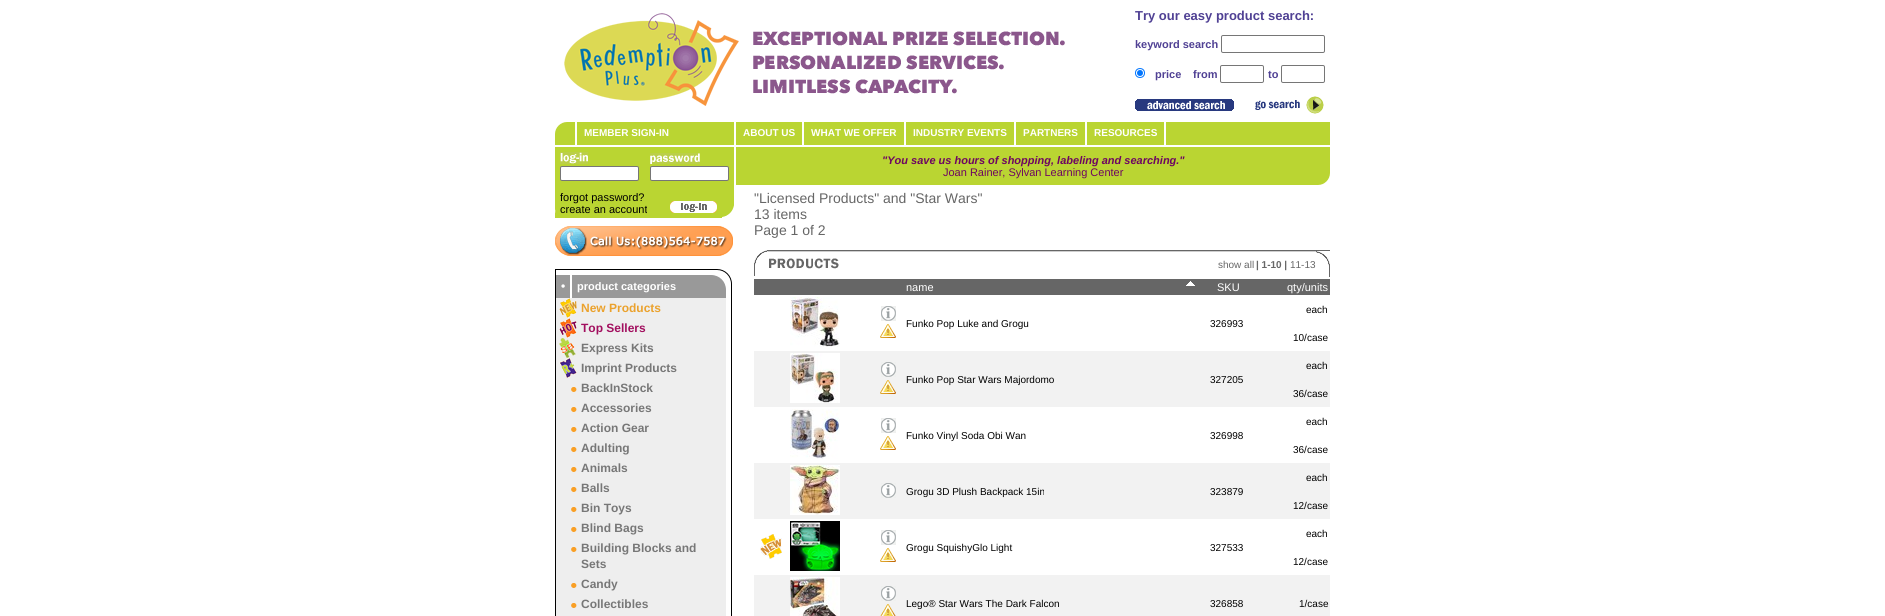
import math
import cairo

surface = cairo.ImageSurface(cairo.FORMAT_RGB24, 1885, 616)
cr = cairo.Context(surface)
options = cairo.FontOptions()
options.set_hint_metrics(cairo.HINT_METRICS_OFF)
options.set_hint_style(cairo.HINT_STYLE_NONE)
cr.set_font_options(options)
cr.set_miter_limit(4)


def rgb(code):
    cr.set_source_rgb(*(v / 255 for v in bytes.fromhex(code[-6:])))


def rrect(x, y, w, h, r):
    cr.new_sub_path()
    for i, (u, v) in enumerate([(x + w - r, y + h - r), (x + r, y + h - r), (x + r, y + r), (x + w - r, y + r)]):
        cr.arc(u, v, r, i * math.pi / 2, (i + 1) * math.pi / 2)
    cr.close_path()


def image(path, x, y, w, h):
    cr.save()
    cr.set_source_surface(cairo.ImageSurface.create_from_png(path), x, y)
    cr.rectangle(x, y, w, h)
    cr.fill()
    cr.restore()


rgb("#ffffff")
cr.paint()
image("img/1.png", 564, 13, 501, 93)
rrect(1221.5, 35.5, 103, 17, 1.5)
rgb("#767676")
cr.set_line_width(1)
cr.stroke()
cr.arc(1140, 73, 4.5, 0, 2 * math.pi)
rgb("#0075ff")
cr.stroke()
cr.arc(1140, 73, 3, 0, 2 * math.pi)
cr.fill()
rrect(1220.5, 65.5, 43, 17, 1.5)
rgb("#767676")
cr.stroke()
rrect(1281.5, 65.5, 43, 17, 1.5)
cr.stroke()
image("img/2.png", 1135, 99, 99, 12)
image("img/3.png", 1255, 96, 69, 18)
rgb("#bad532")
cr.new_path()
cr.move_to(567, 122)
cr.line_to(1330, 122)
cr.line_to(1330, 145)
cr.line_to(555, 145)
cr.line_to(555, 134)
cr.curve_to(555, 127.5, 560.5, 122, 567, 122)
cr.close_path()
cr.fill()
for x, y, w, h, color in [
    (575, 122, 2, 23, "#ffffff"),
    (734, 122, 2, 23, "#ffffff"),
    (802, 122, 2, 23, "#ffffff"),
    (904, 122, 2, 23, "#ffffff"),
    (1014, 122, 2, 23, "#ffffff"),
    (1085, 122, 2, 23, "#ffffff"),
    (1164, 122, 2, 23, "#ffffff"),
    (555, 147, 179, 58, "#bad532"),
]:
    rgb(color)
    cr.rectangle(x, y, w, h)
    cr.fill()
image("img/4.png", 560, 152, 28, 12)
rgb("#ffffff")
rrect(560.5, 166.5, 78, 14, 1.5)
cr.fill_preserve()
rgb("#767676")
cr.stroke()
image("img/5.png", 650, 153, 50, 11)
rgb("#ffffff")
rrect(650.5, 166.5, 78, 14, 1.5)
cr.fill_preserve()
rgb("#767676")
cr.stroke()
image("img/6.png", 555, 205, 179, 15)
image("img/7.png", 670, 201, 47, 12)
image("img/8.png", 555, 226, 178, 30)
cr.new_path()
cr.move_to(555.5, 269.5)
cr.line_to(717, 269.5)
cr.curve_to(725, 269.5, 731.5, 276, 731.5, 284)
cr.line_to(731.5, 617)
cr.curve_to(731.5, 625, 725, 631.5, 717, 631.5)
cr.line_to(555.5, 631.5)
cr.close_path()
rgb("#000000")
cr.stroke()
rgb("#999999")
cr.new_path()
cr.move_to(556, 275)
cr.line_to(711, 275)
cr.curve_to(719.5, 275, 726, 281.5, 726, 290)
cr.line_to(726, 298)
cr.line_to(556, 298)
cr.close_path()
cr.fill()
rgb("#ffffff")
cr.rectangle(570, 275, 2, 23)
cr.fill()
rgb("#eeeeee")
cr.rectangle(556, 298, 170, 318)
cr.fill()
image("img/9.png", 559, 298, 18, 20)
image("img/10.png", 559, 318, 18, 20)
image("img/11.png", 559, 338, 17, 20)
image("img/12.png", 559, 358, 18, 20)
image("img/13.png", 571, 387, 6, 5)
image("img/13.png", 571, 407, 6, 5)
image("img/13.png", 571, 427, 6, 5)
image("img/13.png", 571, 447, 6, 5)
image("img/13.png", 571, 467, 6, 5)
image("img/13.png", 571, 487, 6, 5)
image("img/13.png", 571, 507, 6, 5)
image("img/13.png", 571, 527, 6, 5)
image("img/13.png", 571, 547, 6, 5)
image("img/13.png", 571, 583, 6, 5)
image("img/13.png", 571, 603, 6, 5)
rgb("#bad532")
cr.new_path()
cr.move_to(736, 147)
cr.line_to(1330, 147)
cr.line_to(1330, 173)
cr.curve_to(1330, 179.5, 1324.5, 185, 1318, 185)
cr.line_to(736, 185)
cr.close_path()
cr.fill()
image("img/14.png", 754, 250, 14, 26)
image("img/15.png", 768, 250, 230, 2)
image("img/16.png", 769, 258, 70, 11)
image("img/17.png", 998, 250, 318, 2)
image("img/18.png", 1316, 250, 14, 1)
image("img/19.png", 1316, 251, 14, 26)
rgb("#666666")
cr.rectangle(754, 279, 576, 16)
cr.fill()
image("img/20.png", 1186, 281, 9, 5)
image("img/21.png", 790, 297, 50, 50)
image("img/22.png", 881, 306, 15, 15)
image("img/23.png", 880, 324, 16, 14)
rgb("#f2f2f2")
cr.rectangle(754, 351, 506, 56)
cr.fill()
image("img/24.png", 790, 353, 50, 50)
image("img/22.png", 881, 362, 15, 15)
image("img/25.png", 880, 380, 16, 14)
cr.rectangle(1260, 351, 70, 56)
cr.fill()
image("img/26.png", 790, 409, 50, 50)
image("img/22.png", 881, 418, 15, 15)
image("img/23.png", 880, 436, 16, 14)
cr.rectangle(754, 463, 506, 56)
cr.fill()
image("img/27.png", 790, 465, 50, 50)
cr.rectangle(1260, 463, 70, 56)
cr.fill()
image("img/22.png", 881, 483, 15, 15)
image("img/28.png", 760, 534, 22, 25)
image("img/29.png", 790, 521, 50, 50)
image("img/22.png", 881, 530, 15, 15)
image("img/23.png", 880, 548, 16, 14)
cr.rectangle(754, 575, 576, 41)
cr.fill()
image("img/30.png", 790, 577, 50, 39)
image("img/22.png", 881, 586, 15, 15)
image("img/31.png", 880, 604, 16, 12)
cr.select_font_face("Liberation Sans", cairo.FONT_SLANT_NORMAL, cairo.FONT_WEIGHT_BOLD)
cr.set_font_size(13)
rgb("#504194")
cr.move_to(1135, 20)
cr.show_text("Try our easy product search:")
cr.set_font_size(11)
for x, y, s in [
    (1135, 48, "keyword search"),
    (1155, 78, "price"),
    (1193, 78, "from"),
    (1268, 78, "to"),
]:
    cr.move_to(x, y)
    cr.show_text(s)
cr.set_font_size(10)
rgb("#ffffff")
for x, y, s in [
    (584, 136, "MEMBER SIGN-IN"),
    (743, 136, "ABOUT US"),
    (811, 136, "WHAT WE OFFER"),
    (913, 136, "INDUSTRY EVENTS"),
    (1023, 136, "PARTNERS"),
    (1094, 136, "RESOURCES"),
]:
    cr.move_to(x, y)
    cr.show_text(s)
cr.select_font_face("Liberation Sans")
cr.set_font_size(11)
rgb("#000000")
cr.move_to(560, 201)
cr.show_text("forgot password?")
cr.move_to(560, 213)
cr.show_text("create an account")
cr.select_font_face("Liberation Sans", cairo.FONT_SLANT_NORMAL, cairo.FONT_WEIGHT_BOLD)
cr.set_font_size(12)
rgb("#ffffff")
cr.move_to(561, 290)
cr.show_text("•")
cr.set_font_size(11)
cr.move_to(577, 290)
cr.show_text("product categories")
cr.set_font_size(12)
rgb("#eba22d")
cr.move_to(581, 312)
cr.show_text("New Products")
rgb("#a20f5f")
cr.move_to(581, 332)
cr.show_text("Top Sellers")
rgb("#777777")
for x, y, s in [
    (581, 352, "Express Kits"),
    (581, 372, "Imprint Products"),
    (581, 392, "BackInStock"),
    (581, 412, "Accessories"),
    (581, 432, "Action Gear"),
    (581, 452, "Adulting"),
    (581, 472, "Animals"),
    (581, 492, "Balls"),
    (581, 512, "Bin Toys"),
    (581, 532, "Blind Bags"),
    (581, 552, "Building Blocks and"),
    (581, 568, "Sets"),
    (581, 588, "Candy"),
    (581, 608, "Collectibles"),
]:
    cr.move_to(x, y)
    cr.show_text(s)
cr.select_font_face("Liberation Sans", cairo.FONT_SLANT_ITALIC, cairo.FONT_WEIGHT_BOLD)
cr.set_font_size(11)
rgb("#6e0561")
cr.move_to(882, 164)
cr.show_text("\"You save us hours of shopping, labeling and searching.\"")
cr.select_font_face("Liberation Sans")
cr.move_to(943, 176)
cr.show_text("Joan Rainer, Sylvan Learning Center")
cr.set_font_size(14)
rgb("#666666")
for x, y, s in [
    (754, 203, "\"Licensed Products\" and \"Star Wars\""),
    (754, 219, "13 items"),
    (754, 235, "Page 1 of 2"),
]:
    cr.move_to(x, y)
    cr.show_text(s)
cr.set_font_size(10)
cr.move_to(1218, 268)
cr.show_text("show all")
cr.select_font_face("Liberation Sans", cairo.FONT_SLANT_NORMAL, cairo.FONT_WEIGHT_BOLD)
cr.move_to(1256, 268)
cr.show_text("| 1-10 |")
cr.select_font_face("Liberation Sans")
cr.move_to(1290, 268)
cr.show_text("11-13")
cr.set_font_size(11)
rgb("#ffffff")
for x, y, s in [
    (906, 291, "name"),
    (1217, 291, "SKU"),
    (1287, 291, "qty/units"),
]:
    cr.move_to(x, y)
    cr.show_text(s)
cr.set_font_size(10)
rgb("#000000")
for x, y, s in [
    (906, 327, "Funko Pop Luke and Grogu"),
    (1210, 327, "326993"),
    (1306, 313, "each"),
    (1293, 341, "10/case"),
    (906, 383, "Funko Pop Star Wars Majordomo"),
    (1210, 383, "327205"),
    (1306, 369, "each"),
    (1293, 397, "36/case"),
    (906, 439, "Funko Vinyl Soda Obi Wan"),
    (1210, 439, "326998"),
    (1306, 425, "each"),
    (1293, 453, "36/case"),
    (1306, 481, "each"),
    (906, 495, "Grogu 3D Plush Backpack 15in"),
    (1210, 495, "323879"),
    (1293, 509, "12/case"),
    (906, 551, "Grogu SquishyGlo Light"),
    (1210, 551, "327533"),
    (1306, 537, "each"),
    (1293, 565, "12/case"),
    (906, 607, "Lego® Star Wars The Dark Falcon"),
    (1210, 607, "326858"),
    (1299, 607, "1/case"),
]:
    cr.move_to(x, y)
    cr.show_text(s)
surface.write_to_png("page.png")
